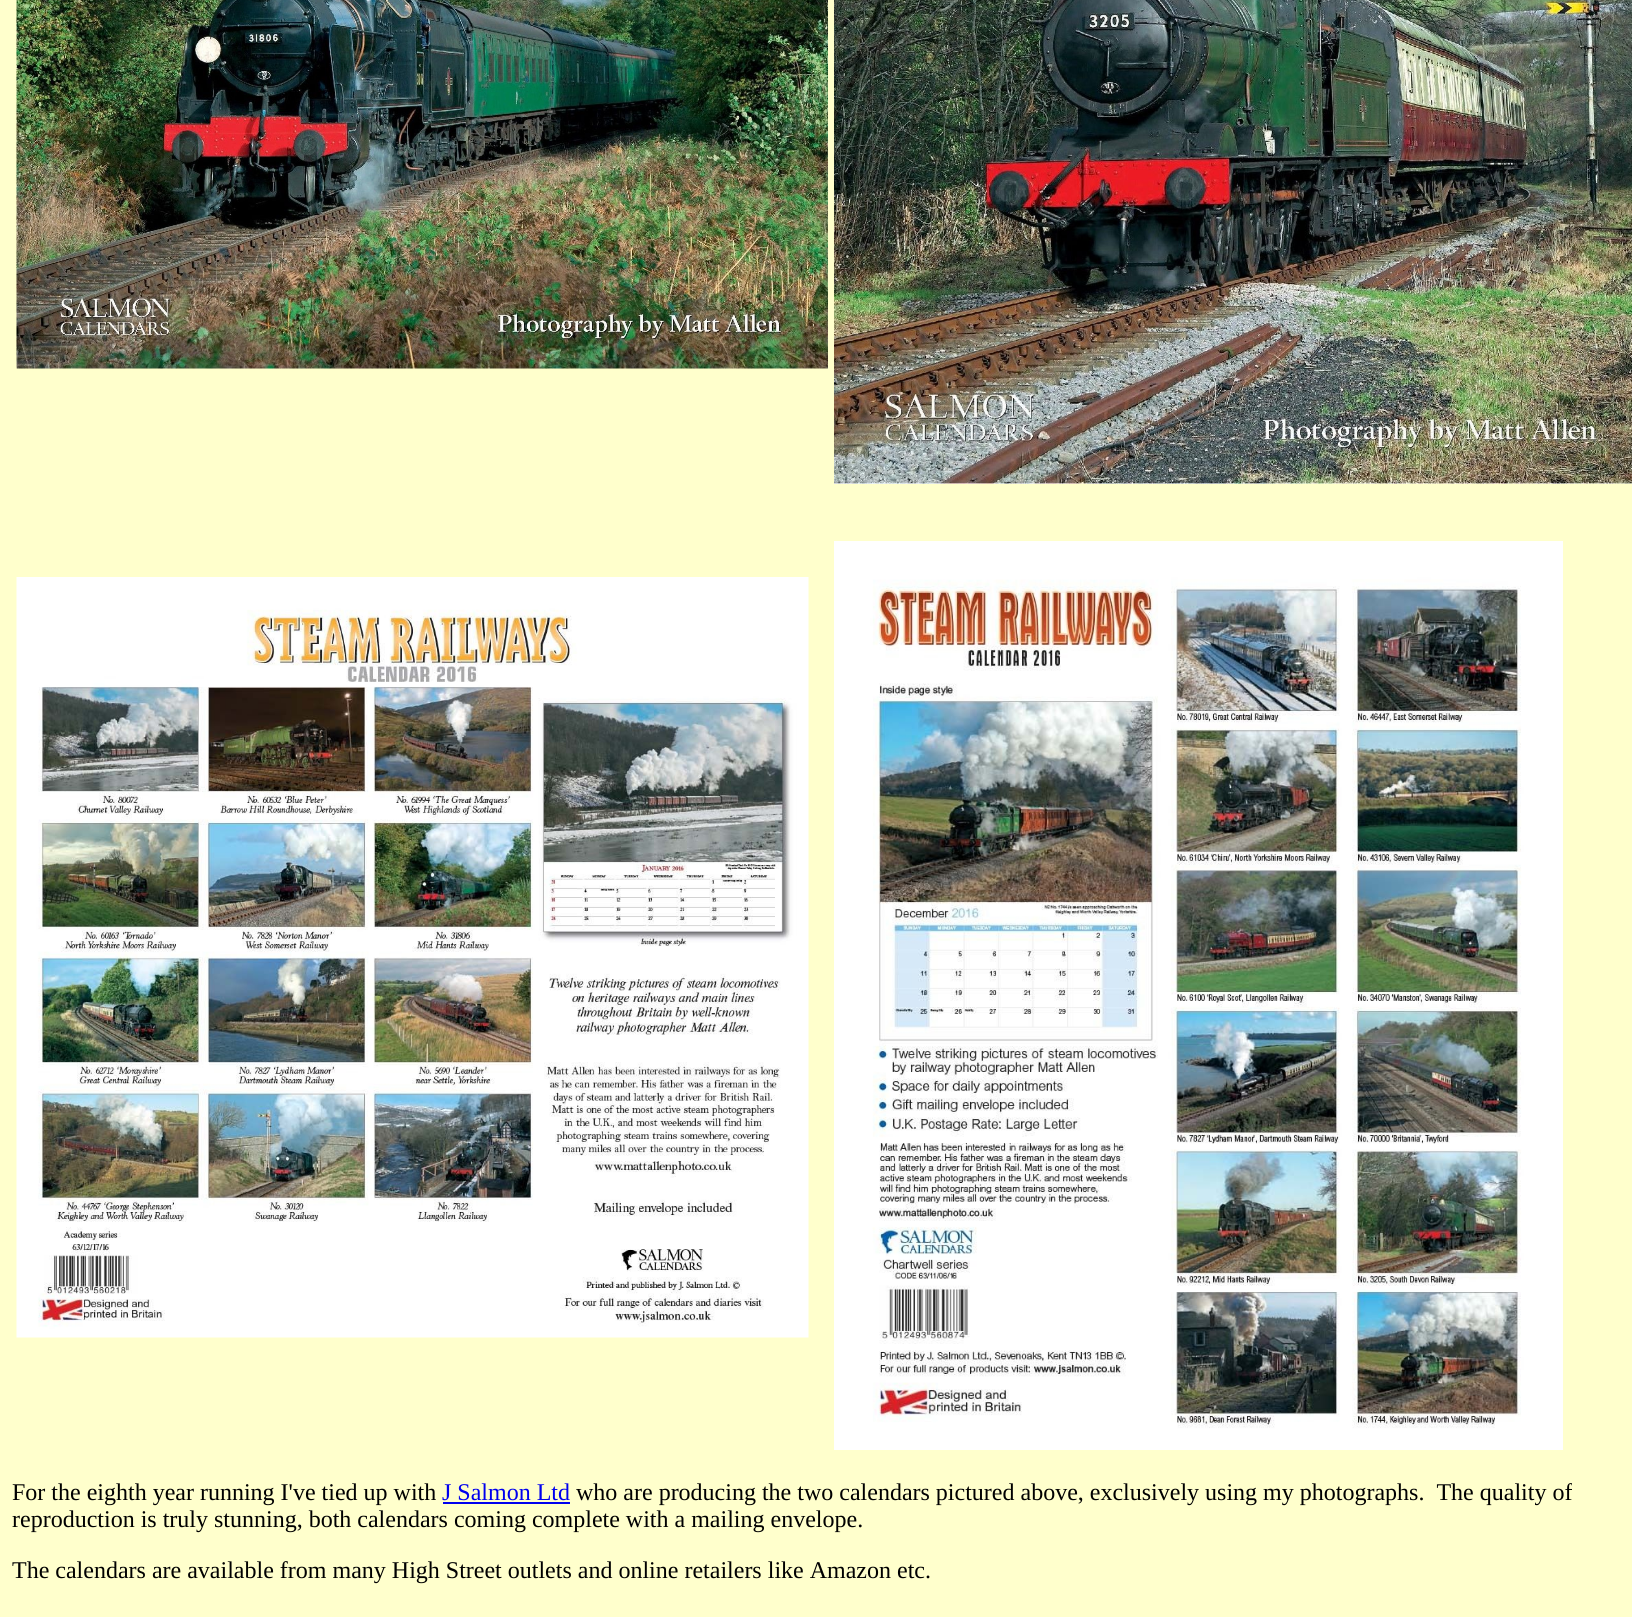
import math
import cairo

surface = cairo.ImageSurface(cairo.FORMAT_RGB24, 1632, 1617)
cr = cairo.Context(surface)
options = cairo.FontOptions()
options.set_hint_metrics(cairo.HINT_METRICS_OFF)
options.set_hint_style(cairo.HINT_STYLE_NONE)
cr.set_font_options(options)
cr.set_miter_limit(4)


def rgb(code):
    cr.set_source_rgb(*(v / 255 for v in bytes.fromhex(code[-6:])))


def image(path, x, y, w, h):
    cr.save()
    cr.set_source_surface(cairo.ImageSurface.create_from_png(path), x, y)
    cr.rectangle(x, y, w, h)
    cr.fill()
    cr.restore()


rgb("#ffffcc")
cr.paint()
image("img/1.png", 16, 0, 812, 369)
image("img/2.png", 834, 0, 798, 484)
image("img/3.png", 16, 577, 793, 761)
image("img/4.png", 834, 541, 729, 909)
rgb("#0000ee")
cr.rectangle(443, 1502, 127, 2)
cr.fill()
cr.select_font_face("Liberation Serif")
cr.set_font_size(24)
rgb("#000000")
cr.move_to(12, 1500)
cr.show_text("For the eighth year running I've tied up with")
rgb("#0000ee")
cr.move_to(442, 1500)
cr.show_text("J Salmon Ltd")
rgb("#000000")
for x, y, s in [
    (576, 1500, "who are producing the two calendars pictured above, exclusively using my photographs.  The quality of"),
    (12, 1527, "reproduction is truly stunning, both calendars coming complete with a mailing envelope."),
    (12, 1578, "The calendars are available from many High Street outlets and online retailers like Amazon etc."),
]:
    cr.move_to(x, y)
    cr.show_text(s)
surface.write_to_png("page.png")
